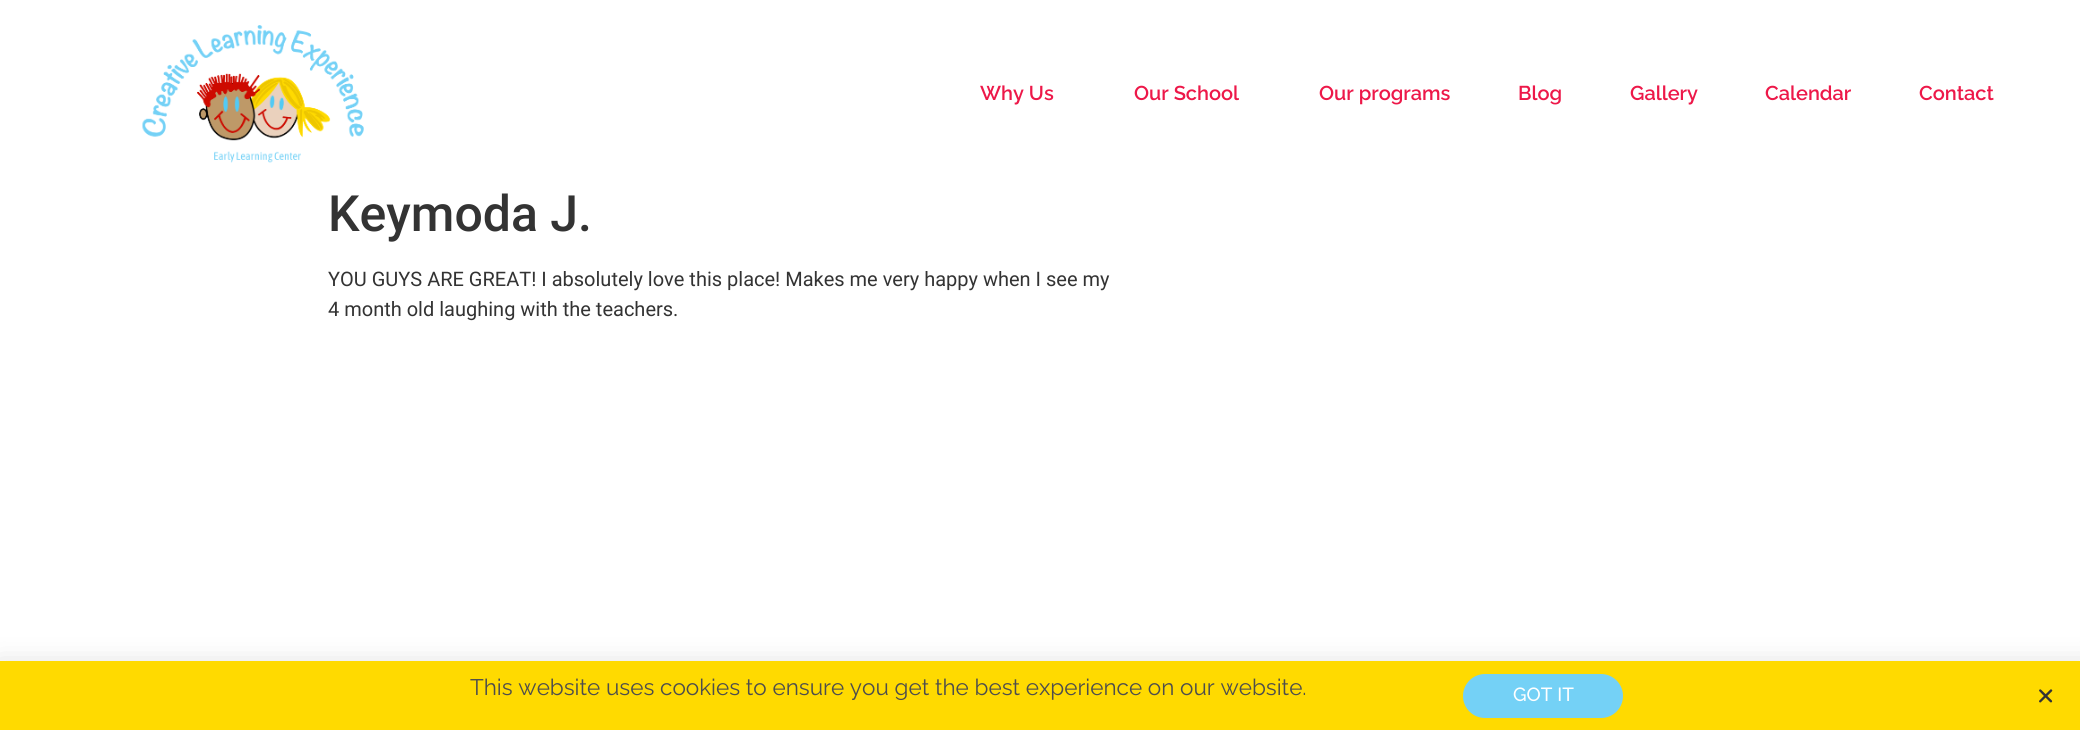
import math
import cairo

surface = cairo.ImageSurface(cairo.FORMAT_RGB24, 2080, 730)
cr = cairo.Context(surface)
options = cairo.FontOptions()
options.set_hint_metrics(cairo.HINT_METRICS_OFF)
options.set_hint_style(cairo.HINT_STYLE_NONE)
cr.set_font_options(options)
cr.set_miter_limit(4)


def rgb(code):
    cr.set_source_rgb(*(v / 255 for v in bytes.fromhex(code[-6:])))


def rrect(x, y, w, h, r):
    cr.new_sub_path()
    for i, (u, v) in enumerate([(x + w - r, y + h - r), (x + r, y + h - r), (x + r, y + r), (x + w - r, y + r)]):
        cr.arc(u, v, r, i * math.pi / 2, (i + 1) * math.pi / 2)
    cr.close_path()


def soft_shadow(x, y, w, h, r, blur, alpha):
    cr.push_group_with_content(cairo.CONTENT_ALPHA)
    cr.set_operator(cairo.OPERATOR_SOURCE)
    for i in range(15, -16, -2):
        e = blur * i / 6
        if min(w, h) + 2 * e > 0:
            cr.set_source_rgba(0, 0, 0, alpha * math.erfc((i - 1) / 8.5) / 2)
            rrect(x - e, y - e, w + 2 * e, h + 2 * e, max(0, min(r + e + blur * .6, min(w, h) / 2 + e)))
            cr.fill()
    cr.mask(cr.pop_group())


def image(path, x, y, w, h):
    cr.save()
    cr.set_source_surface(cairo.ImageSurface.create_from_png(path), x, y)
    cr.rectangle(x, y, w, h)
    cr.fill()
    cr.restore()


rgb("#ffffff")
cr.paint()
image("img/1.png", 142, 25, 222, 138)
rgb("#000000")
soft_shadow(-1, 668, 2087, 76, 0, 14.5, 0.2)
rgb("#ffda00")
cr.rectangle(0, 661, 2080, 69)
cr.fill()
rgb("#74d1f6")
rrect(1463, 674, 160, 44, 22)
cr.fill()
image("img/2.png", 2039, 689, 14, 14)
cr.select_font_face("Raleway SemiBold")
cr.set_font_size(20)
rgb("#ed1849")
for x, y, s in [
    (980, 100, "Why Us"),
    (1134, 100, "Our School"),
    (1319, 100, "Our programs"),
    (1518, 100, "Blog"),
    (1630, 100, "Gallery"),
    (1765, 100, "Calendar"),
    (1919, 100, "Contact"),
]:
    cr.move_to(x, y)
    cr.show_text(s)
cr.select_font_face("Roboto Medium")
cr.set_font_size(50)
rgb("#333333")
cr.move_to(328, 231)
cr.show_text("Keymoda J.")
cr.select_font_face("Roboto")
cr.set_font_size(20)
cr.move_to(328, 286)
cr.show_text("YOU GUYS ARE GREAT! I absolutely love this place! Makes me very happy when I see my")
cr.move_to(328, 316)
cr.show_text("4 month old laughing with the teachers.")
cr.select_font_face("Raleway")
cr.set_font_size(22.5)
rgb("#4d4d4d")
cr.move_to(470, 695)
cr.show_text("This website uses cookies to ensure you get the best experience on our website.")
cr.select_font_face("Raleway Medium")
cr.set_font_size(19)
rgb("#ffffff")
cr.move_to(1513, 701)
cr.show_text("GOT IT")
surface.write_to_png("page.png")
